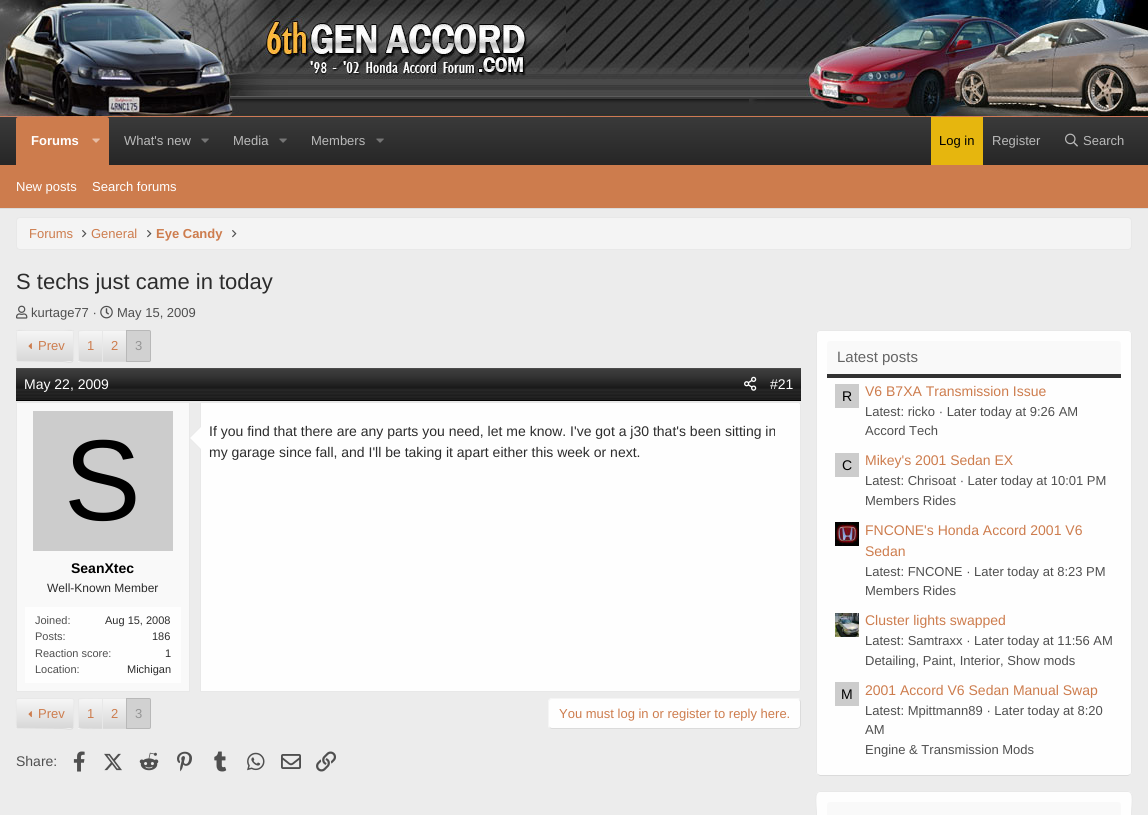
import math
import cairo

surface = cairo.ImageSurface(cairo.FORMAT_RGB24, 1148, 815)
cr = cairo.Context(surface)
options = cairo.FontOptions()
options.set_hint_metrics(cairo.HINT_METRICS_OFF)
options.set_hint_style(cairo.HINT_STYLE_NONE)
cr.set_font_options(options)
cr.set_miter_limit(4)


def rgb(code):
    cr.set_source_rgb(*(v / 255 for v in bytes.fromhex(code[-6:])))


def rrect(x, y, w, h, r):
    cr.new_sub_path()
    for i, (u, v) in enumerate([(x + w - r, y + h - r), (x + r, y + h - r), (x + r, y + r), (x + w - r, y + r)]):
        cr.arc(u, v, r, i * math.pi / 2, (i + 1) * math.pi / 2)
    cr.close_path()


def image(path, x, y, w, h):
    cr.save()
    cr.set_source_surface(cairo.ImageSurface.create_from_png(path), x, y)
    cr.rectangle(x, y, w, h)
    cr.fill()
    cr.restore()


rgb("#ececec")
cr.paint()
image("img/1.png", 566, 0, 183, 117)
image("img/2.png", 0, 0, 566, 117)
image("img/3.png", 749, 0, 399, 117)
gradient = cairo.LinearGradient(574, 117, 574, 165)
gradient.add_color_stop_rgba(0, 0.227, 0.227, 0.227, 1)
gradient.add_color_stop_rgba(1, 0.149, 0.149, 0.149, 1)
cr.set_source(gradient)
cr.rectangle(0, 117, 1148, 48)
cr.fill()
rgb("#cd7c4d")
cr.new_path()
cr.move_to(18, 117)
cr.line_to(107, 117)
cr.curve_to(108, 117, 109, 118, 109, 119)
cr.line_to(109, 165)
cr.line_to(16, 165)
cr.line_to(16, 119)
cr.curve_to(16, 118, 17, 117, 18, 117)
cr.close_path()
cr.fill()
image("img/4.png", 92, 138, 8, 5)
image("img/5.png", 201, 138, 8, 5)
image("img/5.png", 279, 138, 8, 5)
image("img/5.png", 376, 138, 8, 5)
rgb("#e6b60e")
cr.rectangle(931, 117, 52, 48)
cr.fill()
image("img/6.png", 1065, 133, 13, 14)
rgb("#cd7c4d")
cr.rectangle(0, 165, 1148, 43)
cr.fill()
rgb("#dbdbdb")
cr.rectangle(0, 208, 1148, 1)
cr.fill()
rgb("#f4f4f4")
rrect(16.5, 217.5, 1115, 32, 3.5)
cr.fill_preserve()
rgb("#e8e8e8")
cr.set_line_width(1)
cr.stroke()
image("img/7.png", 82, 230, 5, 8)
image("img/7.png", 147, 230, 5, 8)
image("img/7.png", 232, 230, 5, 8)
image("img/8.png", 16, 305, 12, 14)
image("img/9.png", 100, 305, 13, 14)
cr.save()
rrect(16, 330, 58, 32, 2)
cr.clip()
gradient = cairo.LinearGradient(45, 331, 45, 301)
gradient.add_color_stop_rgba(0, 0.847, 0.847, 0.847, 1)
gradient.add_color_stop_rgba(1, 0.961, 0.961, 0.961, 1)
cr.set_source(gradient)
cr.rectangle(16, 330, 58, 1)
cr.fill()
gradient = cairo.LinearGradient(45, 361, 45, 331)
gradient.add_color_stop_rgba(0, 0.847, 0.847, 0.847, 1)
gradient.add_color_stop_rgba(1, 0.961, 0.961, 0.961, 1)
cr.set_source(gradient)
cr.rectangle(16, 331, 58, 30)
cr.fill()
gradient = cairo.LinearGradient(45, 391, 45, 361)
gradient.add_color_stop_rgba(0, 0.847, 0.847, 0.847, 1)
gradient.add_color_stop_rgba(1, 0.961, 0.961, 0.961, 1)
cr.set_source(gradient)
cr.rectangle(16, 361, 58, 1)
cr.fill()
cr.restore()
cr.new_path()
cr.move_to(73, 361)
cr.curve_to(70.5, 363.5, 66.5, 361.5, 63, 361.5)
cr.line_to(17, 361)
rgb("#dbdbdb")
cr.stroke()
cr.new_path()
cr.move_to(17, 361)
cr.curve_to(15.5, 359.5, 16.5, 348.5, 16.5, 346)
cr.line_to(16.5, 336.5)
cr.curve_to(16.5, 328, 16.5, 330.5, 27, 330.5)
cr.line_to(63, 330.5)
cr.curve_to(73.5, 330.5, 73.5, 328, 73.5, 336.5)
cr.line_to(73.5, 346)
cr.curve_to(73.5, 348.5, 74.5, 359.5, 73, 361)
rgb("#e8e8e8")
cr.stroke()
image("img/10.png", 28, 343, 4, 6)
gradient = cairo.LinearGradient(91, 361, 91, 331)
gradient.add_color_stop_rgba(0, 0.847, 0.847, 0.847, 1)
gradient.add_color_stop_rgba(1, 0.961, 0.961, 0.961, 1)
cr.set_source(gradient)
cr.rectangle(78, 331, 24, 30)
cr.fill()
gradient = cairo.LinearGradient(91, 391, 91, 361)
gradient.add_color_stop_rgba(0, 0.847, 0.847, 0.847, 1)
gradient.add_color_stop_rgba(1, 0.961, 0.961, 0.961, 1)
cr.set_source(gradient)
cr.rectangle(78, 361, 24, 1)
cr.fill()
rgb("#e8e8e8")
cr.new_path()
cr.move_to(80, 330)
cr.line_to(78.5, 330.5)
cr.line_to(79.5, 331.5)
cr.curve_to(80, 330.5, 99.5, 331, 102, 331)
cr.line_to(102, 330)
cr.close_path()
cr.fill()
rgb("#dbdbdb")
cr.new_path()
cr.move_to(102, 362)
cr.curve_to(99, 362, 80, 362.5, 79, 361)
cr.line_to(79.5, 360.5)
cr.curve_to(80, 361.5, 99.5, 361, 102, 361)
cr.close_path()
cr.fill()
rgb("#e8e8e8")
cr.new_path()
cr.move_to(78, 331.5)
cr.line_to(78, 360.5)
cr.line_to(79, 361)
cr.line_to(79.5, 360.5)
cr.line_to(79, 360)
cr.line_to(79, 332)
cr.line_to(79.5, 331.5)
cr.line_to(78.5, 330.5)
cr.close_path()
cr.fill()
gradient = cairo.LinearGradient(115, 361, 115, 331)
gradient.add_color_stop_rgba(0, 0.847, 0.847, 0.847, 1)
gradient.add_color_stop_rgba(1, 0.961, 0.961, 0.961, 1)
cr.set_source(gradient)
cr.rectangle(103, 331, 23, 30)
cr.fill()
for x, y, w, h, color in [
    (102, 330, 24, 1, "#e8e8e8"),
    (102, 361, 24, 1, "#dbdbdb"),
    (102, 330, 1, 32, "#e8e8e8"),
]:
    rgb(color)
    cr.rectangle(x, y, w, h)
    cr.fill()
rgb("#d1d1d1")
cr.new_path()
cr.move_to(126.5, 330.5)
cr.line_to(149, 330.5)
cr.curve_to(150, 330.5, 150.5, 331, 150.5, 332)
cr.line_to(150.5, 360)
cr.curve_to(150.5, 361, 150, 361.5, 149, 361.5)
cr.line_to(126.5, 361.5)
cr.close_path()
cr.fill_preserve()
rgb("#b8b8b8")
cr.stroke()
image("img/11.png", 16, 368, 785, 33)
rgb("#e8e8e8")
cr.rectangle(16, 401, 785, 1)
cr.fill()
image("img/12.png", 744, 376, 13, 15)
rgb("#f9f9f9")
cr.rectangle(16.5, 402.5, 173, 289)
cr.fill_preserve()
rgb("#e8e8e8")
cr.stroke()
rgb("#cccccc")
cr.rectangle(33, 411, 140, 140)
cr.fill()
rgb("#fefefe")
cr.new_path()
cr.move_to(200.5, 402.5)
cr.line_to(798, 402.5)
cr.curve_to(799.5, 402.5, 800.5, 403.5, 800.5, 405)
cr.line_to(800.5, 689)
cr.curve_to(800.5, 690.5, 799.5, 691.5, 798, 691.5)
cr.line_to(200.5, 691.5)
cr.close_path()
cr.fill_preserve()
rgb("#e8e8e8")
cr.stroke()
cr.new_path()
cr.move_to(201, 426)
cr.line_to(201, 450)
cr.line_to(189, 438)
cr.close_path()
cr.fill()
rgb("#fefefe")
cr.new_path()
cr.move_to(201, 427)
cr.line_to(201, 449)
cr.line_to(190, 438)
cr.close_path()
cr.fill()
cr.rectangle(25, 607, 156, 76)
cr.fill()
cr.save()
rrect(16, 698, 58, 31, 2)
cr.clip()
gradient = cairo.LinearGradient(45, 728, 45, 699)
gradient.add_color_stop_rgba(0, 0.847, 0.847, 0.847, 1)
gradient.add_color_stop_rgba(1, 0.961, 0.961, 0.961, 1)
cr.set_source(gradient)
cr.rectangle(16, 699, 58, 29)
cr.fill()
gradient = cairo.LinearGradient(45, 757, 45, 728)
gradient.add_color_stop_rgba(0, 0.847, 0.847, 0.847, 1)
gradient.add_color_stop_rgba(1, 0.961, 0.961, 0.961, 1)
cr.set_source(gradient)
cr.rectangle(16, 728, 58, 1)
cr.fill()
cr.restore()
cr.new_path()
cr.move_to(73, 728)
cr.curve_to(70.5, 730.5, 66.5, 728.5, 63, 728.5)
cr.line_to(17, 728)
rgb("#dbdbdb")
cr.stroke()
cr.new_path()
cr.move_to(17, 728)
cr.curve_to(15.5, 726.5, 16.5, 716, 16.5, 713.5)
cr.curve_to(16.5, 696.5, 12.5, 698.5, 27, 698.5)
cr.line_to(63, 698.5)
cr.curve_to(77.5, 698.5, 73.5, 696.5, 73.5, 713.5)
cr.curve_to(73.5, 716, 74.5, 726.5, 73, 728)
rgb("#e8e8e8")
cr.stroke()
image("img/13.png", 28, 711, 4, 6)
gradient = cairo.LinearGradient(91, 728, 91, 699)
gradient.add_color_stop_rgba(0, 0.847, 0.847, 0.847, 1)
gradient.add_color_stop_rgba(1, 0.961, 0.961, 0.961, 1)
cr.set_source(gradient)
cr.rectangle(78, 699, 24, 29)
cr.fill()
gradient = cairo.LinearGradient(91, 757, 91, 728)
gradient.add_color_stop_rgba(0, 0.847, 0.847, 0.847, 1)
gradient.add_color_stop_rgba(1, 0.961, 0.961, 0.961, 1)
cr.set_source(gradient)
cr.rectangle(78, 728, 24, 1)
cr.fill()
rgb("#e8e8e8")
cr.new_path()
cr.move_to(80, 698)
cr.line_to(78.5, 698.5)
cr.line_to(79.5, 699.5)
cr.curve_to(80, 698.5, 99.5, 699, 102, 699)
cr.line_to(102, 698)
cr.close_path()
cr.fill()
rgb("#dbdbdb")
cr.new_path()
cr.move_to(102, 729)
cr.curve_to(99, 729, 80, 729.5, 79, 728)
cr.line_to(79.5, 727.5)
cr.curve_to(80, 728.5, 99.5, 728, 102, 728)
cr.close_path()
cr.fill()
rgb("#e8e8e8")
cr.new_path()
cr.move_to(78, 699.5)
cr.line_to(78, 727.5)
cr.line_to(79, 728)
cr.line_to(79.5, 727.5)
cr.line_to(79, 727)
cr.line_to(79, 700)
cr.line_to(79.5, 699.5)
cr.line_to(78.5, 698.5)
cr.close_path()
cr.fill()
gradient = cairo.LinearGradient(115, 728, 115, 699)
gradient.add_color_stop_rgba(0, 0.847, 0.847, 0.847, 1)
gradient.add_color_stop_rgba(1, 0.961, 0.961, 0.961, 1)
cr.set_source(gradient)
cr.rectangle(103, 699, 23, 29)
cr.fill()
for x, y, w, h, color in [
    (102, 698, 24, 1, "#e8e8e8"),
    (102, 728, 24, 1, "#dbdbdb"),
    (102, 698, 1, 31, "#e8e8e8"),
]:
    rgb(color)
    cr.rectangle(x, y, w, h)
    cr.fill()
rgb("#d1d1d1")
cr.new_path()
cr.move_to(126.5, 698.5)
cr.line_to(149, 698.5)
cr.curve_to(150, 698.5, 150.5, 699, 150.5, 700)
cr.line_to(150.5, 727)
cr.curve_to(150.5, 728, 150, 728.5, 149, 728.5)
cr.line_to(126.5, 728.5)
cr.close_path()
cr.fill_preserve()
rgb("#b8b8b8")
cr.stroke()
rgb("#fefefe")
rrect(548, 698, 253, 31, 4)
cr.fill()
cr.new_path()
cr.move_to(799.5, 699.5)
cr.curve_to(800, 700, 800.5, 701, 800.5, 702)
cr.line_to(800.5, 725)
cr.curve_to(800.5, 726, 800, 727, 799.5, 727.5)
cr.curve_to(799, 728, 798, 728.5, 797, 728.5)
cr.line_to(552, 728.5)
cr.curve_to(551, 728.5, 550, 728, 549.5, 727.5)
rgb("#dbdbdb")
cr.stroke()
cr.new_path()
cr.move_to(549.5, 727.5)
cr.curve_to(549, 727, 548.5, 726, 548.5, 725)
cr.line_to(548.5, 702)
cr.curve_to(548.5, 701, 549, 700, 549.5, 699.5)
cr.curve_to(550, 699, 551, 698.5, 552, 698.5)
cr.line_to(797, 698.5)
cr.curve_to(798, 698.5, 799, 699, 799.5, 699.5)
rgb("#f5f5f5")
cr.stroke()
image("img/14.png", 73, 751, 12, 21)
image("img/15.png", 104, 753, 18, 18)
image("img/16.png", 139, 752, 20, 19)
image("img/17.png", 177, 751, 15, 21)
image("img/18.png", 214, 751, 13, 21)
image("img/19.png", 247, 752, 18, 19)
image("img/20.png", 281, 754, 20, 15)
image("img/21.png", 316, 751, 20, 21)
rgb("#fefefe")
rrect(816, 330, 316, 446, 4)
cr.fill()
cr.new_path()
cr.move_to(1130.5, 774.5)
cr.line_to(1128, 775.5)
cr.line_to(820, 775.5)
cr.line_to(817.5, 774.5)
rgb("#dbdbdb")
cr.stroke()
cr.new_path()
cr.move_to(817.5, 774.5)
cr.curve_to(817, 774, 816.5, 773, 816.5, 772)
cr.line_to(816.5, 334)
cr.curve_to(816.5, 333, 817, 332, 817.5, 331.5)
cr.curve_to(818, 331, 819, 330.5, 820, 330.5)
cr.line_to(1128, 330.5)
cr.curve_to(1129, 330.5, 1130, 331, 1130.5, 331.5)
cr.curve_to(1131, 332, 1131.5, 333, 1131.5, 334)
cr.line_to(1131.5, 772)
cr.curve_to(1131.5, 773, 1131, 774, 1130.5, 774.5)
rgb("#e8e8e8")
cr.stroke()
rgb("#f9f9f9")
cr.new_path()
cr.move_to(830, 341)
cr.line_to(1118, 341)
cr.curve_to(1119.5, 341, 1121, 342.5, 1121, 344)
cr.line_to(1121, 378)
cr.line_to(827, 378)
cr.line_to(827, 344)
cr.curve_to(827, 342.5, 828.5, 341, 830, 341)
cr.close_path()
cr.fill()
for x, y, w, h, color in [
    (827, 374, 294, 4, "#323232"),
    (835, 384, 24, 24, "#cccccc"),
    (835, 453, 24, 24, "#cccccc"),
]:
    rgb(color)
    cr.rectangle(x, y, w, h)
    cr.fill()
image("img/22.png", 835, 522, 24, 24)
image("img/23.png", 835, 613, 24, 24)
cr.rectangle(835, 682, 24, 24)
cr.fill()
rgb("#fefefe")
rrect(816, 791, 316, 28, 4)
cr.fill()
cr.new_path()
cr.move_to(817.5, 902.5)
cr.line_to(816.5, 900)
cr.line_to(816.5, 812.5)
cr.curve_to(816.5, 805.5, 813.5, 791.5, 820, 791.5)
cr.line_to(1128, 791.5)
cr.curve_to(1134.5, 791.5, 1131.5, 805.5, 1131.5, 812.5)
cr.line_to(1131.5, 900)
cr.line_to(1130.5, 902.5)
rgb("#e8e8e8")
cr.stroke()
rgb("#f9f9f9")
cr.new_path()
cr.move_to(830, 802)
cr.line_to(1118, 802)
cr.curve_to(1119.5, 802, 1121, 803.5, 1121, 805)
cr.line_to(1121, 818)
cr.line_to(827, 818)
cr.line_to(827, 805)
cr.curve_to(827, 803.5, 828.5, 802, 830, 802)
cr.close_path()
cr.fill()
cr.select_font_face("Liberation Sans", cairo.FONT_SLANT_NORMAL, cairo.FONT_WEIGHT_BOLD)
cr.set_font_size(13)
rgb("#ffffff")
cr.move_to(31, 145)
cr.show_text("Forums")
cr.select_font_face("Liberation Sans")
rgb("#bababa")
for x, y, s in [
    (124, 145, "What's new"),
    (233, 145, "Media"),
    (311, 145, "Members"),
]:
    cr.move_to(x, y)
    cr.show_text(s)
rgb("#000000")
cr.move_to(939, 145)
cr.show_text("Log in")
rgb("#bababa")
cr.move_to(992, 145)
cr.show_text("Register")
cr.move_to(1083, 145)
cr.show_text("Search")
rgb("#ffffff")
cr.move_to(16, 191)
cr.show_text("New posts")
cr.move_to(92, 191)
cr.show_text("Search forums")
rgb("#cd7c4d")
cr.move_to(29, 238)
cr.show_text("Forums")
cr.move_to(91, 238)
cr.show_text("General")
cr.select_font_face("Liberation Sans", cairo.FONT_SLANT_NORMAL, cairo.FONT_WEIGHT_BOLD)
cr.move_to(156, 238)
cr.show_text("Eye Candy")
cr.select_font_face("Liberation Sans")
cr.set_font_size(22)
rgb("#2c2c2c")
cr.move_to(16, 289)
cr.show_text("S techs just came in today")
cr.set_font_size(13)
rgb("#4f4f4f")
cr.move_to(31, 317)
cr.show_text("kurtage77 ·")
cr.move_to(117, 317)
cr.show_text("May 15, 2009")
rgb("#cd7c4d")
for x, y, s in [
    (38, 350, "Prev"),
    (87, 350, "1"),
    (111, 350, "2"),
]:
    cr.move_to(x, y)
    cr.show_text(s)
rgb("#959595")
cr.move_to(135, 350)
cr.show_text("3")
cr.set_font_size(14)
rgb("#ffffff")
cr.move_to(24, 389)
cr.show_text("May 22, 2009")
cr.move_to(770, 389)
cr.show_text("#21")
cr.set_font_size(115)
rgb("#000000")
cr.move_to(64, 520)
cr.show_text("S")
cr.select_font_face("Liberation Sans", cairo.FONT_SLANT_NORMAL, cairo.FONT_WEIGHT_BOLD)
cr.set_font_size(14)
cr.move_to(71, 573)
cr.show_text("SeanXtec")
cr.select_font_face("Liberation Sans")
cr.set_font_size(12)
rgb("#2c2c2c")
cr.move_to(47, 592)
cr.show_text("Well-Known Member")
cr.set_font_size(11)
rgb("#4f4f4f")
cr.move_to(35, 624)
cr.show_text("Joined:")
rgb("#2c2c2c")
cr.move_to(105, 624)
cr.show_text("Aug 15, 2008")
rgb("#4f4f4f")
cr.move_to(35, 640)
cr.show_text("Posts:")
rgb("#2c2c2c")
cr.move_to(152, 640)
cr.show_text("186")
rgb("#4f4f4f")
cr.move_to(35, 657)
cr.show_text("Reaction score:")
rgb("#2c2c2c")
cr.move_to(165, 657)
cr.show_text("1")
rgb("#4f4f4f")
cr.move_to(35, 673)
cr.show_text("Location:")
rgb("#2c2c2c")
cr.move_to(127, 673)
cr.show_text("Michigan")
cr.set_font_size(14)
cr.move_to(209, 436)
cr.show_text("If you find that there are any parts you need, let me know. I've got a j30 that's been sitting in")
cr.move_to(209, 457)
cr.show_text("my garage since fall, and I'll be taking it apart either this week or next.")
cr.set_font_size(13)
rgb("#cd7c4d")
for x, y, s in [
    (38, 718, "Prev"),
    (87, 718, "1"),
    (111, 718, "2"),
]:
    cr.move_to(x, y)
    cr.show_text(s)
rgb("#959595")
cr.move_to(135, 718)
cr.show_text("3")
rgb("#cd7c4d")
cr.move_to(559, 718)
cr.show_text("You must log in or register to reply here.")
cr.set_font_size(14)
rgb("#4f4f4f")
cr.move_to(16, 766)
cr.show_text("Share:")
cr.set_font_size(15)
rgb("#646464")
cr.move_to(837, 362)
cr.show_text("Latest posts")
cr.set_font_size(14)
rgb("#000000")
cr.move_to(842, 401)
cr.show_text("R")
rgb("#cd7c4d")
cr.move_to(865, 396)
cr.show_text("V6 B7XA Transmission Issue")
cr.set_font_size(13)
rgb("#4f4f4f")
cr.move_to(865, 416)
cr.show_text("Latest: ricko · Later today at 9:26 AM")
cr.move_to(865, 435)
cr.show_text("Accord Tech")
cr.set_font_size(14)
rgb("#000000")
cr.move_to(842, 470)
cr.show_text("C")
rgb("#cd7c4d")
cr.move_to(865, 465)
cr.show_text("Mikey's 2001 Sedan EX")
cr.set_font_size(13)
rgb("#4f4f4f")
cr.move_to(865, 485)
cr.show_text("Latest: Chrisoat · Later today at 10:01 PM")
cr.move_to(865, 505)
cr.show_text("Members Rides")
cr.set_font_size(14)
rgb("#cd7c4d")
cr.move_to(865, 535)
cr.show_text("FNCONE's Honda Accord 2001 V6")
cr.move_to(865, 556)
cr.show_text("Sedan")
cr.set_font_size(13)
rgb("#4f4f4f")
cr.move_to(865, 576)
cr.show_text("Latest: FNCONE · Later today at 8:23 PM")
cr.move_to(865, 595)
cr.show_text("Members Rides")
cr.set_font_size(14)
rgb("#cd7c4d")
cr.move_to(865, 625)
cr.show_text("Cluster lights swapped")
cr.set_font_size(13)
rgb("#4f4f4f")
cr.move_to(865, 645)
cr.show_text("Latest: Samtraxx · Later today at 11:56 AM")
cr.move_to(865, 665)
cr.show_text("Detailing, Paint, Interior, Show mods")
cr.set_font_size(14)
rgb("#000000")
cr.move_to(841, 699)
cr.show_text("M")
rgb("#cd7c4d")
cr.move_to(865, 695)
cr.show_text("2001 Accord V6 Sedan Manual Swap")
cr.set_font_size(13)
rgb("#4f4f4f")
for x, y, s in [
    (865, 715, "Latest: Mpittmann89 · Later today at 8:20"),
    (865, 734, "AM"),
    (865, 754, "Engine & Transmission Mods"),
]:
    cr.move_to(x, y)
    cr.show_text(s)
surface.write_to_png("page.png")
